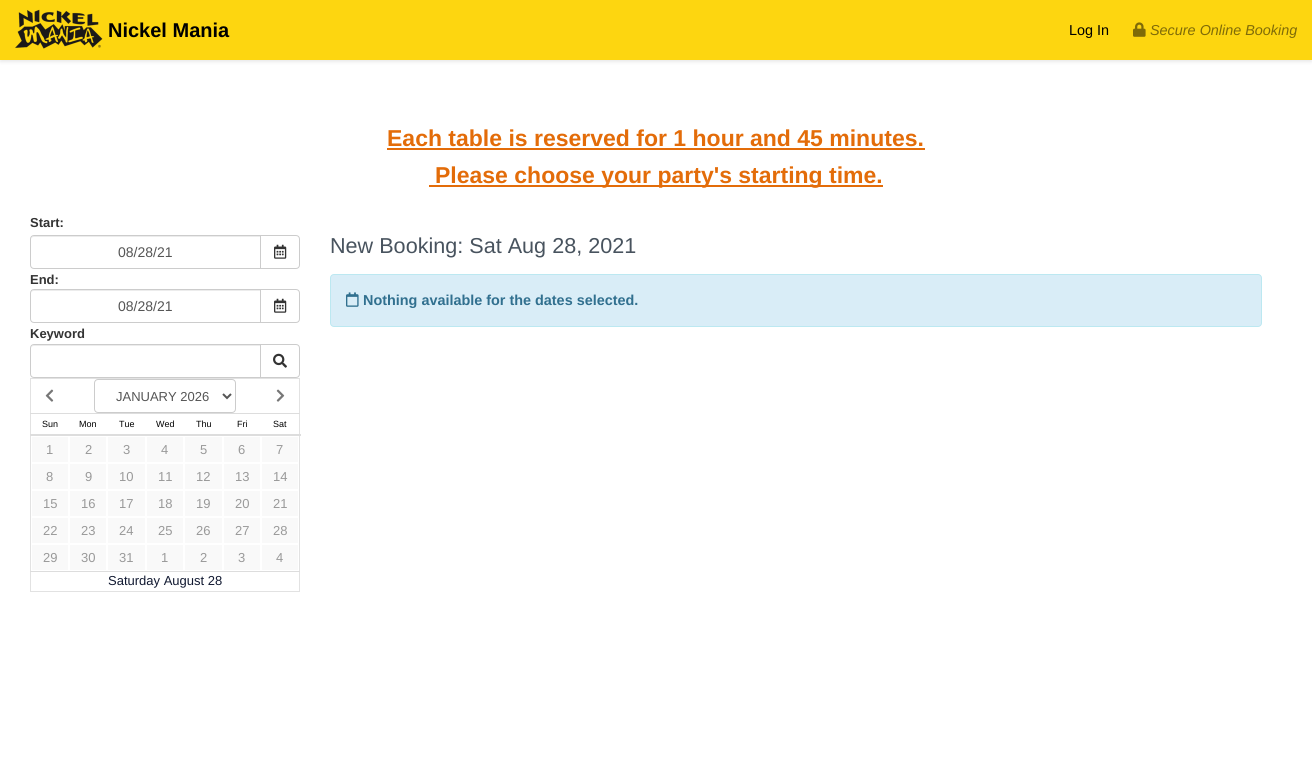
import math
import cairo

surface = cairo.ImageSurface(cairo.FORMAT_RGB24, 1312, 763)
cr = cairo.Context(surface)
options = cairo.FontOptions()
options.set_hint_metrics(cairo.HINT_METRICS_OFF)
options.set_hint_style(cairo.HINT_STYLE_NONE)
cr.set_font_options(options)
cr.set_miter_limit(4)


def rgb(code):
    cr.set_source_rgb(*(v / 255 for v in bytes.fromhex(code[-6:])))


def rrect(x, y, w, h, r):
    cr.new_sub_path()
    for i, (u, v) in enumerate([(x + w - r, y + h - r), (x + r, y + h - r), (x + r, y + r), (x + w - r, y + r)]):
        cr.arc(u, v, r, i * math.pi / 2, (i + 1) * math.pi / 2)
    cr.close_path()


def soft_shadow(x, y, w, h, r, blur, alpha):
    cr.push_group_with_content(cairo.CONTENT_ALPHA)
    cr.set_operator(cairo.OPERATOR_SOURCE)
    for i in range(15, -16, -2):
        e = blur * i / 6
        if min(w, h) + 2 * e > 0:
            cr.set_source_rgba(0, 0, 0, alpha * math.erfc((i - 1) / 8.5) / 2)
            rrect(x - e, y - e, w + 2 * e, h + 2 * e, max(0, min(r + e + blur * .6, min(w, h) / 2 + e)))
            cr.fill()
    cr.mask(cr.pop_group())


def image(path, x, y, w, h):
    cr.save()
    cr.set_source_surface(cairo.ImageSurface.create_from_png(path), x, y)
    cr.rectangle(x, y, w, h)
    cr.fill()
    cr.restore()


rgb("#ffffff")
cr.paint()
rgb("#323232")
soft_shadow(0, 2, 1312, 60, 0, 1.5, 0.1)
rgb("#fdd610")
cr.rectangle(0, 0, 1312, 60)
cr.fill()
image("img/1.png", 15, 9, 88, 40)
image("img/2.png", 1133, 22, 13, 15)
rgb("#e36c09")
cr.rectangle(387, 148, 538, 2)
cr.fill()
cr.rectangle(429, 185, 454, 2)
cr.fill()
rgb("#ececec")
cr.new_path()
cr.move_to(34, 237)
cr.line_to(260, 237)
cr.line_to(260, 236)
cr.line_to(34, 236)
cr.curve_to(32, 236, 31, 238, 31, 240)
cr.curve_to(31, 238, 32, 237, 34, 237)
cr.close_path()
cr.fill()
cr.new_path()
cr.move_to(34, 235.5)
cr.line_to(260.5, 235.5)
cr.line_to(260.5, 268.5)
cr.line_to(34, 268.5)
cr.curve_to(32, 268.5, 30.5, 267, 30.5, 265)
cr.line_to(30.5, 239)
cr.curve_to(30.5, 237, 32, 235.5, 34, 235.5)
cr.close_path()
rgb("#cccccc")
cr.set_line_width(1)
cr.stroke()
rgb("#ffffff")
cr.new_path()
cr.move_to(260.5, 235.5)
cr.line_to(296, 235.5)
cr.curve_to(298, 235.5, 299.5, 237, 299.5, 239)
cr.line_to(299.5, 265)
cr.curve_to(299.5, 267, 298, 268.5, 296, 268.5)
cr.line_to(260.5, 268.5)
cr.close_path()
cr.fill_preserve()
rgb("#cccccc")
cr.stroke()
image("img/3.png", 274, 244, 13, 15)
rgb("#ececec")
cr.new_path()
cr.move_to(34, 291)
cr.line_to(260, 291)
cr.line_to(260, 290)
cr.line_to(34, 290)
cr.curve_to(32, 290, 31, 292, 31, 294)
cr.curve_to(31, 292, 32, 291, 34, 291)
cr.close_path()
cr.fill()
cr.new_path()
cr.move_to(34, 289.5)
cr.line_to(260.5, 289.5)
cr.line_to(260.5, 322.5)
cr.line_to(34, 322.5)
cr.curve_to(32, 322.5, 30.5, 321, 30.5, 319)
cr.line_to(30.5, 293)
cr.curve_to(30.5, 291, 32, 289.5, 34, 289.5)
cr.close_path()
rgb("#cccccc")
cr.stroke()
rgb("#ffffff")
cr.new_path()
cr.move_to(260.5, 289.5)
cr.line_to(296, 289.5)
cr.curve_to(298, 289.5, 299.5, 291, 299.5, 293)
cr.line_to(299.5, 319)
cr.curve_to(299.5, 321, 298, 322.5, 296, 322.5)
cr.line_to(260.5, 322.5)
cr.close_path()
cr.fill_preserve()
rgb("#cccccc")
cr.stroke()
image("img/3.png", 274, 298, 13, 15)
rgb("#ececec")
cr.new_path()
cr.move_to(34, 346)
cr.line_to(260, 346)
cr.line_to(260, 345)
cr.line_to(34, 345)
cr.curve_to(32, 345, 31, 347, 31, 349)
cr.curve_to(31, 347, 32, 346, 34, 346)
cr.close_path()
cr.fill()
cr.new_path()
cr.move_to(34, 344.5)
cr.line_to(260.5, 344.5)
cr.line_to(260.5, 377.5)
cr.line_to(34, 377.5)
cr.curve_to(32, 377.5, 30.5, 376, 30.5, 374)
cr.line_to(30.5, 348)
cr.curve_to(30.5, 346, 32, 344.5, 34, 344.5)
cr.close_path()
rgb("#cccccc")
cr.stroke()
rgb("#ffffff")
cr.new_path()
cr.move_to(260.5, 344.5)
cr.line_to(296, 344.5)
cr.curve_to(298, 344.5, 299.5, 346, 299.5, 348)
cr.line_to(299.5, 374)
cr.curve_to(299.5, 376, 298, 377.5, 296, 377.5)
cr.line_to(260.5, 377.5)
cr.close_path()
cr.fill_preserve()
rgb("#cccccc")
cr.stroke()
image("img/4.png", 273, 353, 14, 15)
for x, y, w, h, color in [
    (30, 378, 270, 1, "#e2e2e2"),
    (299, 378, 1, 214, "#e2e2e2"),
    (30, 591, 270, 1, "#e2e2e2"),
    (30, 378, 1, 214, "#e2e2e2"),
]:
    rgb(color)
    cr.rectangle(x, y, w, h)
    cr.fill()
image("img/5.png", 45, 389, 9, 13)
rrect(94.5, 379.5, 141, 33, 3.5)
rgb("#cccccc")
cr.stroke()
cr.new_path()
cr.move_to(223, 394)
cr.line_to(227, 398)
cr.line_to(231, 394)
rgb("#555555")
cr.set_line_width(2)
cr.stroke()
image("img/6.png", 276, 389, 9, 13)
for x, y, w, h, color in [
    (30, 413, 270, 1, "#dddddd"),
    (30, 434, 271, 2, "#dddddd"),
    (32, 437, 36, 25, "#f9f9f9"),
    (70, 437, 36, 25, "#f9f9f9"),
    (108, 437, 37, 25, "#f9f9f9"),
    (147, 437, 36, 25, "#f9f9f9"),
    (185, 437, 37, 25, "#f9f9f9"),
    (224, 437, 36, 25, "#f9f9f9"),
    (262, 437, 36, 25, "#f9f9f9"),
    (32, 464, 36, 25, "#f9f9f9"),
    (70, 464, 36, 25, "#f9f9f9"),
    (108, 464, 37, 25, "#f9f9f9"),
    (147, 464, 36, 25, "#f9f9f9"),
    (185, 464, 37, 25, "#f9f9f9"),
    (224, 464, 36, 25, "#f9f9f9"),
    (262, 464, 36, 25, "#f9f9f9"),
    (32, 491, 36, 25, "#f9f9f9"),
    (70, 491, 36, 25, "#f9f9f9"),
    (108, 491, 37, 25, "#f9f9f9"),
    (147, 491, 36, 25, "#f9f9f9"),
    (185, 491, 37, 25, "#f9f9f9"),
    (224, 491, 36, 25, "#f9f9f9"),
    (262, 491, 36, 25, "#f9f9f9"),
    (32, 518, 36, 25, "#f9f9f9"),
    (70, 518, 36, 25, "#f9f9f9"),
    (108, 518, 37, 25, "#f9f9f9"),
    (147, 518, 36, 25, "#f9f9f9"),
    (185, 518, 37, 25, "#f9f9f9"),
    (224, 518, 36, 25, "#f9f9f9"),
    (262, 518, 36, 25, "#f9f9f9"),
    (32, 545, 36, 25, "#f9f9f9"),
    (70, 545, 36, 25, "#f9f9f9"),
    (108, 545, 37, 25, "#f9f9f9"),
    (147, 545, 36, 25, "#f9f9f9"),
    (185, 545, 37, 25, "#f9f9f9"),
    (224, 545, 36, 25, "#f9f9f9"),
    (262, 545, 36, 25, "#f9f9f9"),
    (30, 571, 270, 1, "#dddddd"),
]:
    rgb(color)
    cr.rectangle(x, y, w, h)
    cr.fill()
rgb("#d9edf7")
rrect(330.5, 274.5, 931, 52, 3.5)
cr.fill_preserve()
rgb("#bce8f1")
cr.set_line_width(1)
cr.stroke()
image("img/7.png", 346, 292, 13, 15)
cr.select_font_face("Liberation Sans", cairo.FONT_SLANT_NORMAL, cairo.FONT_WEIGHT_BOLD)
cr.set_font_size(20)
rgb("#000000")
cr.move_to(108, 37)
cr.show_text("Nickel Mania")
cr.select_font_face("Liberation Sans")
cr.set_font_size(14.4)
cr.move_to(1069, 35)
cr.show_text("Log In")
cr.select_font_face("Liberation Sans", cairo.FONT_SLANT_ITALIC)
rgb("#7f6b08")
cr.move_to(1150, 35)
cr.show_text("Secure Online Booking")
cr.select_font_face("Liberation Sans", cairo.FONT_SLANT_NORMAL, cairo.FONT_WEIGHT_BOLD)
cr.set_font_size(23)
rgb("#e36c09")
cr.move_to(387, 146)
cr.show_text("Each table is reserved for 1 hour and 45 minutes.")
cr.move_to(435, 183)
cr.show_text("Please choose your party's starting time.")
cr.set_font_size(13)
rgb("#333333")
cr.move_to(30, 227)
cr.show_text("Start:")
cr.select_font_face("Liberation Sans")
cr.set_font_size(14)
rgb("#555555")
cr.move_to(118, 257)
cr.show_text("08/28/21")
cr.select_font_face("Liberation Sans", cairo.FONT_SLANT_NORMAL, cairo.FONT_WEIGHT_BOLD)
cr.set_font_size(13)
rgb("#333333")
cr.move_to(30, 284)
cr.show_text("End:")
cr.select_font_face("Liberation Sans")
cr.set_font_size(14)
rgb("#555555")
cr.move_to(118, 311)
cr.show_text("08/28/21")
cr.select_font_face("Liberation Sans", cairo.FONT_SLANT_NORMAL, cairo.FONT_WEIGHT_BOLD)
cr.set_font_size(13)
rgb("#333333")
cr.move_to(30, 338)
cr.show_text("Keyword")
cr.select_font_face("Liberation Sans")
rgb("#555555")
cr.move_to(116, 401)
cr.show_text("JANUARY 2026")
cr.set_font_size(9)
rgb("#000000")
for x, y, s in [
    (42, 427, "Sun"),
    (79, 427, "Mon"),
    (119, 427, "Tue"),
    (156, 427, "Wed"),
    (196, 427, "Thu"),
    (237, 427, "Fri"),
    (273, 427, "Sat"),
]:
    cr.move_to(x, y)
    cr.show_text(s)
cr.set_font_size(13)
rgb("#999999")
for x, y, s in [
    (46, 454, "1"),
    (85, 454, "2"),
    (123, 454, "3"),
    (161, 454, "4"),
    (200, 454, "5"),
    (238, 454, "6"),
    (276, 454, "7"),
    (46, 481, "8"),
    (85, 481, "9"),
    (119, 481, "10"),
    (158, 481, "11"),
    (196, 481, "12"),
    (235, 481, "13"),
    (273, 481, "14"),
    (43, 508, "15"),
    (81, 508, "16"),
    (119, 508, "17"),
    (158, 508, "18"),
    (196, 508, "19"),
    (235, 508, "20"),
    (273, 508, "21"),
    (43, 535, "22"),
    (81, 535, "23"),
    (119, 535, "24"),
    (158, 535, "25"),
    (196, 535, "26"),
    (235, 535, "27"),
    (273, 535, "28"),
    (43, 562, "29"),
    (81, 562, "30"),
    (119, 562, "31"),
    (161, 562, "1"),
    (200, 562, "2"),
    (238, 562, "3"),
    (276, 562, "4"),
]:
    cr.move_to(x, y)
    cr.show_text(s)
rgb("#111931")
cr.move_to(108, 585)
cr.show_text("Saturday August 28")
cr.set_font_size(21.6)
rgb("#48535e")
cr.move_to(330, 253)
cr.show_text("New Booking: Sat Aug 28, 2021")
cr.select_font_face("Liberation Sans", cairo.FONT_SLANT_NORMAL, cairo.FONT_WEIGHT_BOLD)
cr.set_font_size(14.4)
rgb("#31708f")
cr.move_to(363, 305)
cr.show_text("Nothing available for the dates selected.")
surface.write_to_png("page.png")
